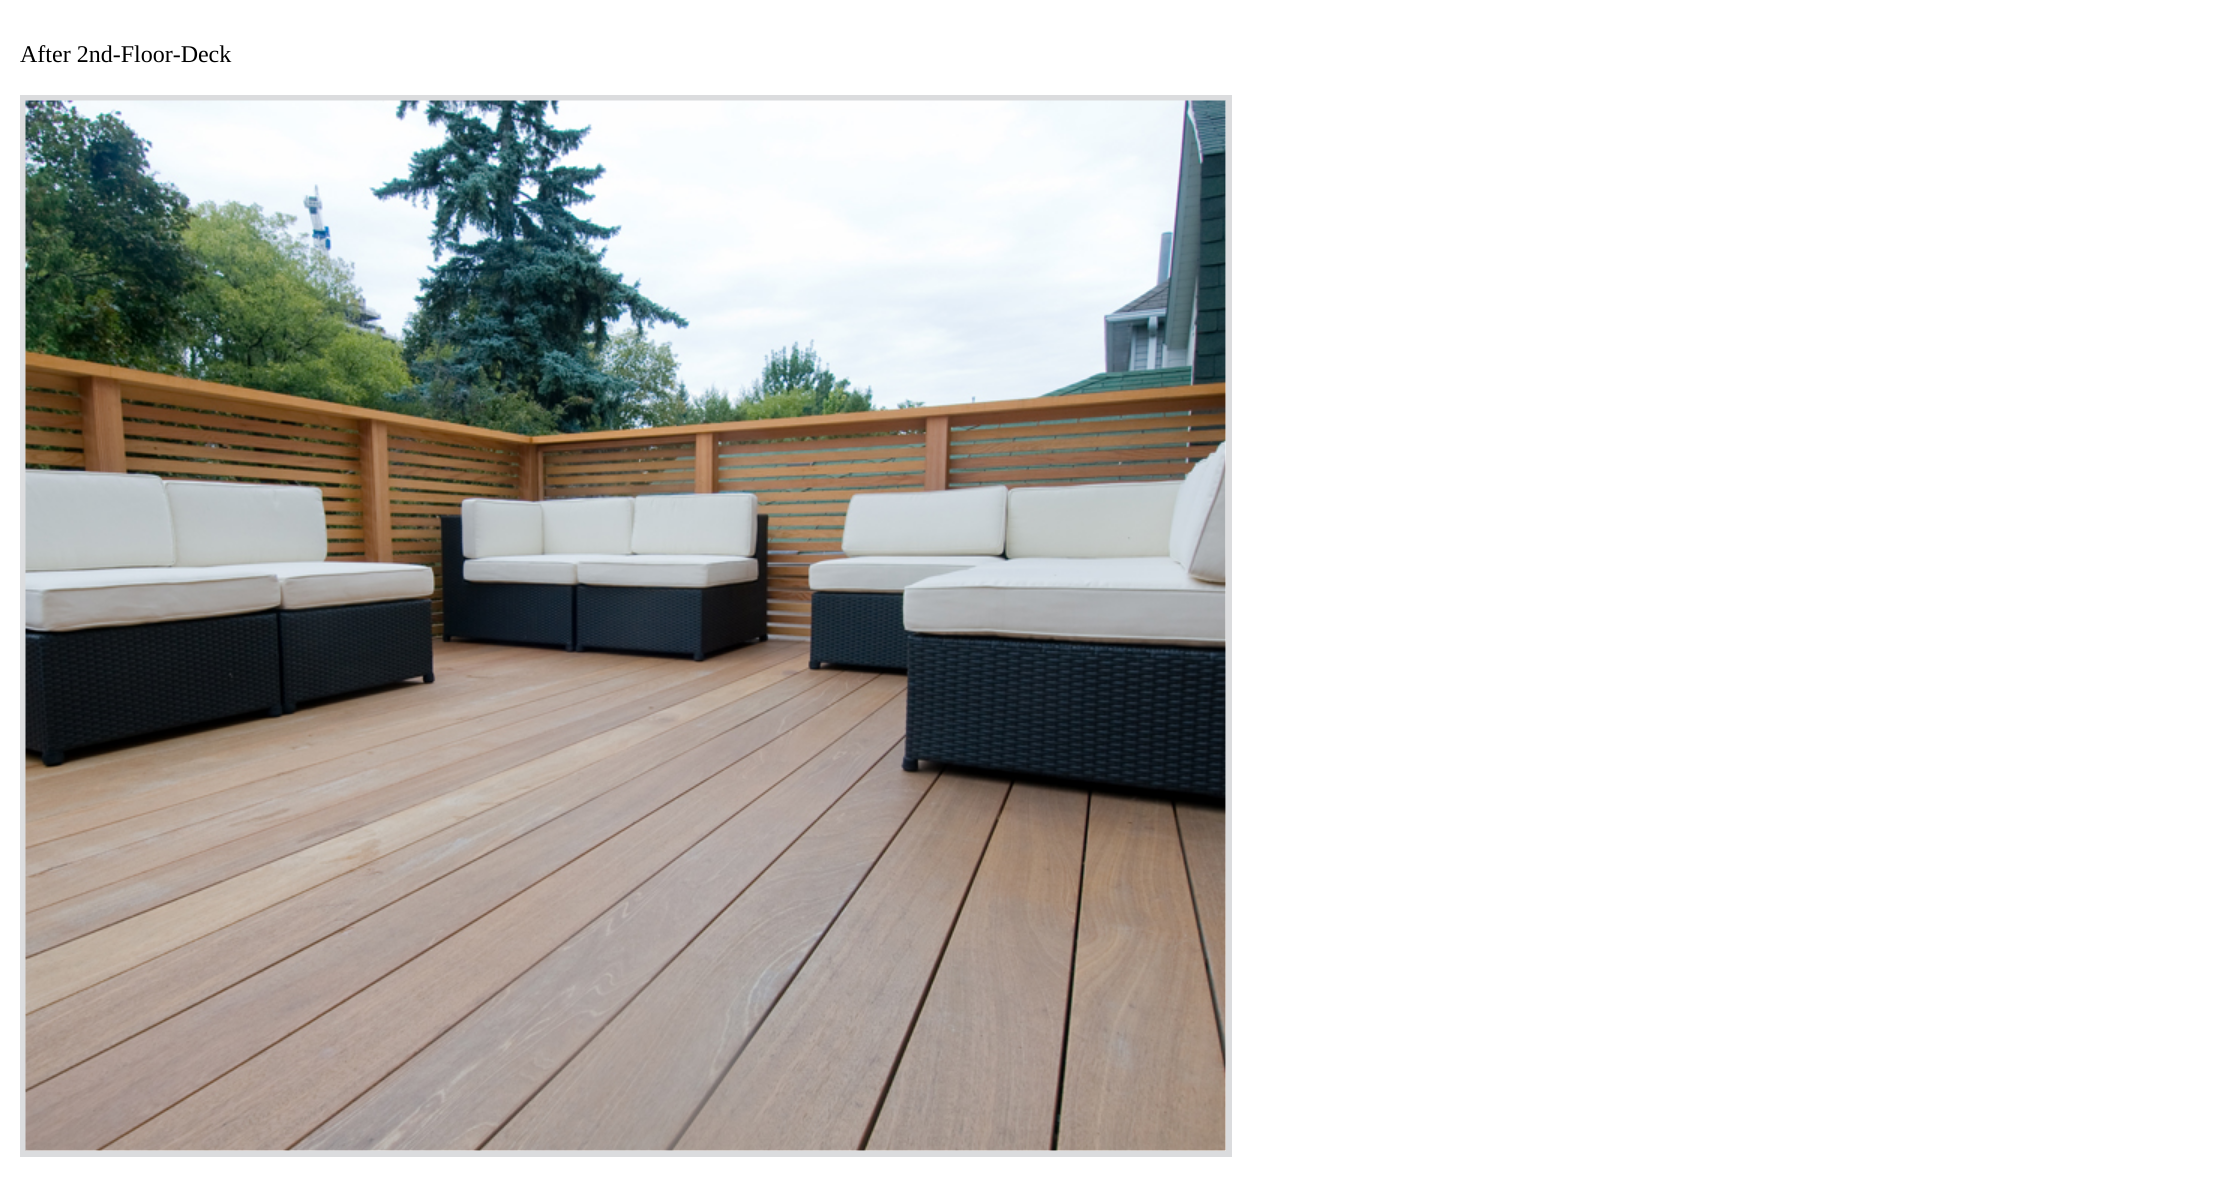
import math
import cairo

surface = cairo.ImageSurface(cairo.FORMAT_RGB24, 2236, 1202)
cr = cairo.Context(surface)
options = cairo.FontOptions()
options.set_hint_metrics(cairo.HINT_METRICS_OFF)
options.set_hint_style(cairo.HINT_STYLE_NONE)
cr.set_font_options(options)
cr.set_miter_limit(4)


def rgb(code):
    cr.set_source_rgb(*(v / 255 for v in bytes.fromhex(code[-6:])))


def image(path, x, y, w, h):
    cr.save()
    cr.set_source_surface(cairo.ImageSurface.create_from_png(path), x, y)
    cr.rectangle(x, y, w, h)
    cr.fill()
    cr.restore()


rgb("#ffffff")
cr.paint()
cr.rectangle(23, 98, 1206, 1056)
rgb("#dbdcde")
cr.set_line_width(6)
cr.stroke()
image("img/1.png", 25, 100, 1201, 1051)
cr.select_font_face("Liberation Serif")
cr.set_font_size(24)
rgb("#000000")
cr.move_to(20, 62)
cr.show_text("After 2nd-Floor-Deck")
surface.write_to_png("page.png")
